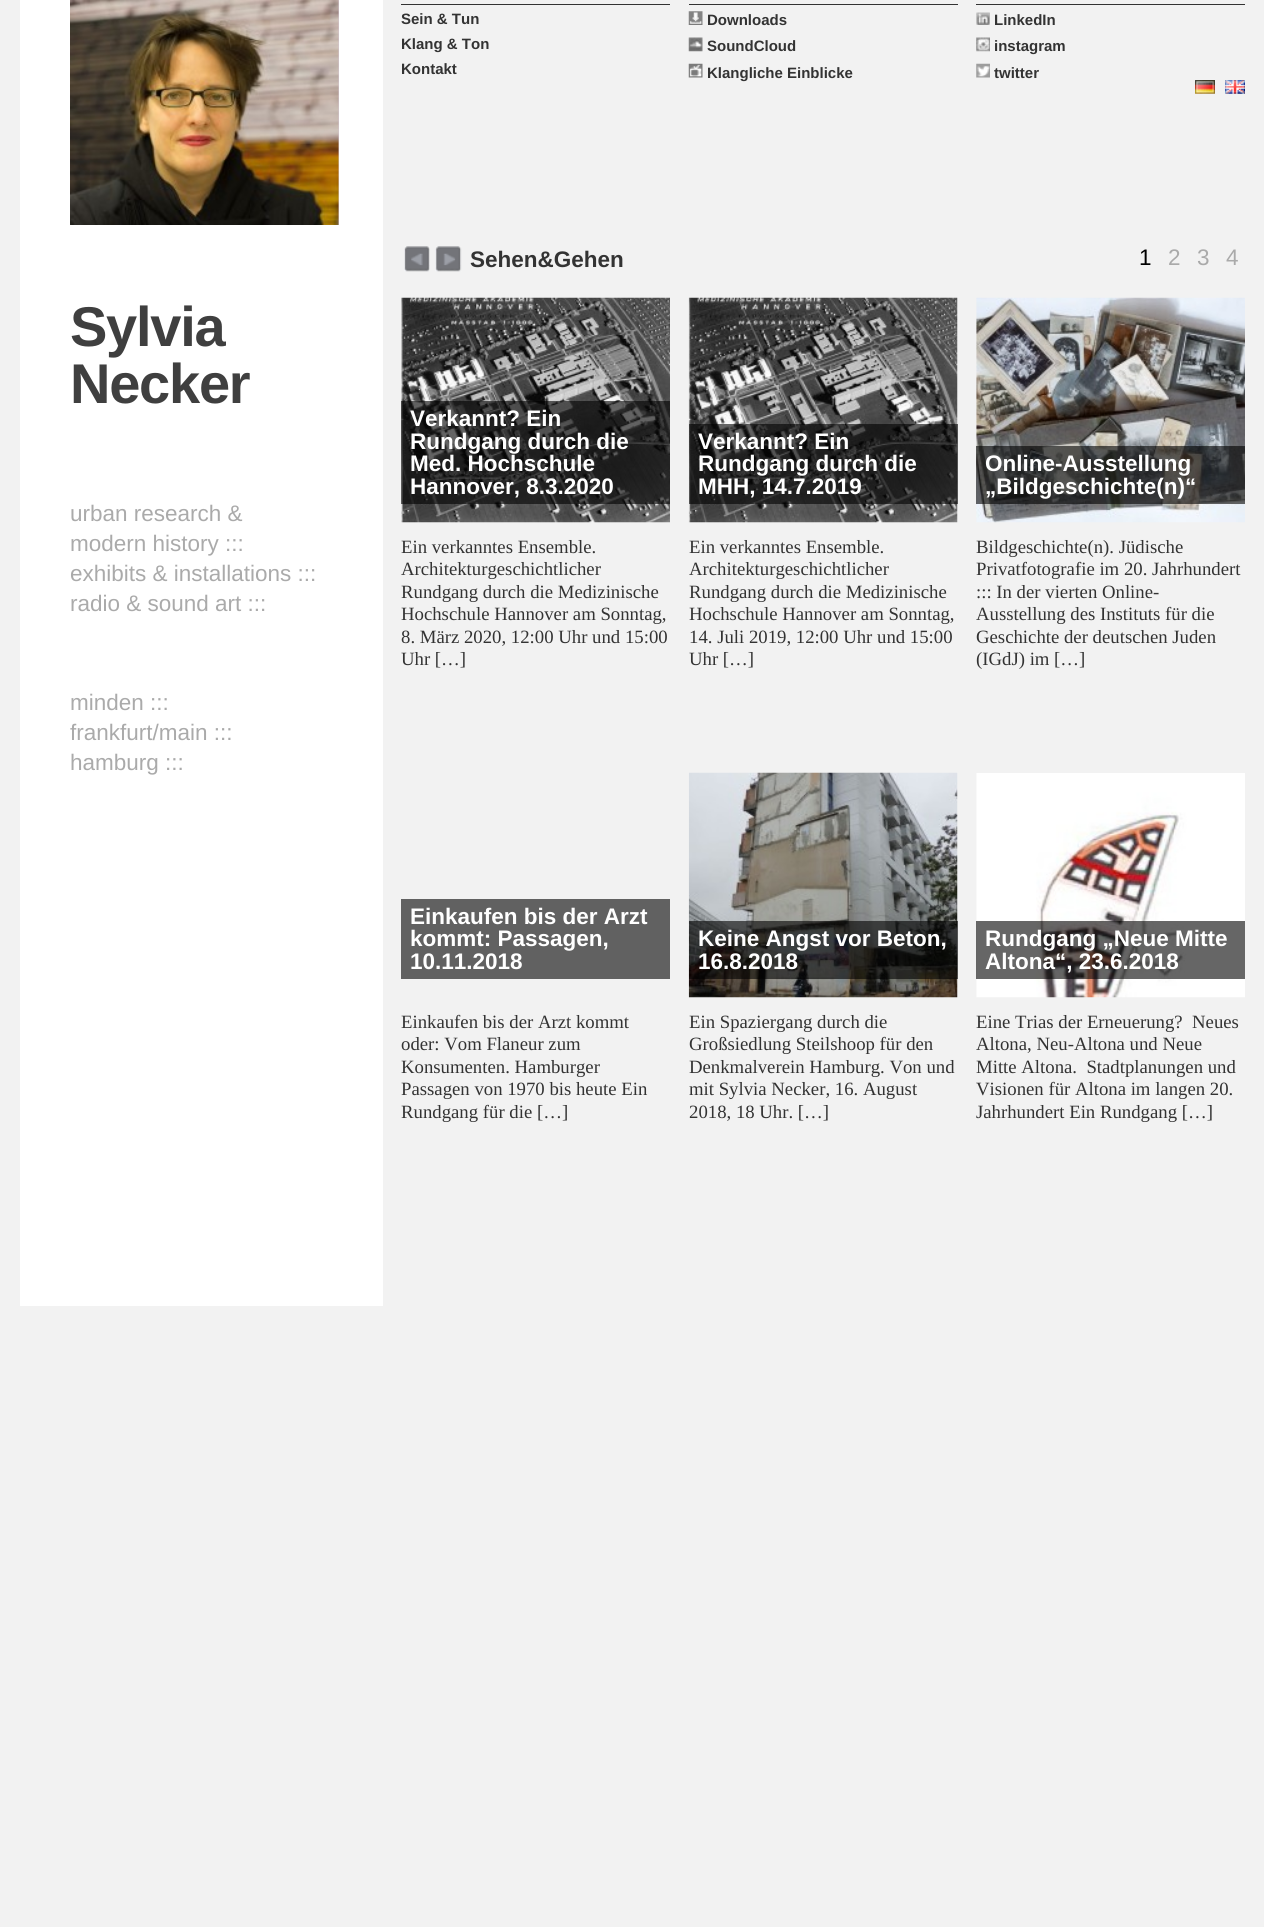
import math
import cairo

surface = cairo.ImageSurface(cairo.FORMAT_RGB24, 1264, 1927)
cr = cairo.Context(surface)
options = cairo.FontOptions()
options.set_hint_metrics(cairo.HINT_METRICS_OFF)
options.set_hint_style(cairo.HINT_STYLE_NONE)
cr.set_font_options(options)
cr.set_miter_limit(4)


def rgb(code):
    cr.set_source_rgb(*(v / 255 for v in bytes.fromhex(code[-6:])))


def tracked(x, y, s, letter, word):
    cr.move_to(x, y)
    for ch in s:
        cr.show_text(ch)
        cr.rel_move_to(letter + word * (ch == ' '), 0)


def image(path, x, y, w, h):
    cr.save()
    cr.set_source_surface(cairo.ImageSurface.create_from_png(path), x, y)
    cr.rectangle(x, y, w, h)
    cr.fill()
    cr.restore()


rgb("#f2f2f2")
cr.paint()
for x, y, w, h, color in [
    (20, 0, 363, 1306, "#ffffff"),
    (401, 4, 269, 1, "#333333"),
    (689, 4, 269, 1, "#333333"),
]:
    rgb(color)
    cr.rectangle(x, y, w, h)
    cr.fill()
image("img/1.png", 688, 11, 15, 14)
image("img/2.png", 688, 37, 15, 15)
image("img/3.png", 688, 63, 15, 15)
cr.rectangle(976, 4, 269, 1)
cr.fill()
image("img/4.png", 976, 12, 14, 13)
image("img/5.png", 976, 37, 14, 15)
image("img/6.png", 976, 63, 14, 15)
image("img/7.png", 1195, 80, 20, 14)
image("img/8.png", 1225, 80, 20, 14)
rgb("#d3c5d4")
cr.rectangle(338, 0, 1, 225)
cr.fill()
image("img/9.png", 70, 0, 269, 225)
image("img/10.png", 404, 246, 26, 26)
image("img/11.png", 435, 246, 27, 26)
image("img/12.png", 401, 297, 269, 226)
cr.set_source_rgba(0, 0, 0, 0.6)
cr.rectangle(401, 401, 269, 103)
cr.fill()
image("img/13.png", 688, 297, 270, 226)
cr.rectangle(689, 424, 269, 80)
cr.fill()
image("img/14.png", 976, 297, 269, 226)
cr.rectangle(976, 446, 269, 58)
cr.fill()
rgb("#616161")
cr.rectangle(401, 899, 269, 80)
cr.fill()
image("img/15.png", 688, 772, 270, 226)
cr.set_source_rgba(0, 0, 0, 0.6)
cr.rectangle(689, 921, 269, 58)
cr.fill()
image("img/16.png", 976, 773, 269, 225)
cr.rectangle(976, 921, 269, 58)
cr.fill()
cr.select_font_face("Liberation Sans", cairo.FONT_SLANT_NORMAL, cairo.FONT_WEIGHT_BOLD)
cr.set_font_size(15)
rgb("#333333")
for x, y, s in [
    (401, 24, "Sein & Tun"),
    (401, 49, "Klang & Ton"),
    (401, 74, "Kontakt"),
    (707, 25, "Downloads"),
    (707, 51, "SoundCloud"),
    (707, 78, "Klangliche Einblicke"),
    (994, 25, "LinkedIn"),
    (994, 51, "instagram"),
    (994, 78, "twitter"),
]:
    cr.move_to(x, y)
    cr.show_text(s)
cr.set_font_size(56)
rgb("#3f3f3f")
tracked(70, 346, "Sylvia", -1.25, 0)
tracked(70, 403, "Necker", -1.25, 0)
cr.select_font_face("Liberation Sans")
cr.set_font_size(22.5)
rgb("#aaaaaa")
for x, y, s in [
    (70, 521, "urban research &"),
    (70, 551, "modern history :::"),
    (70, 581, "exhibits & installations :::"),
    (70, 611, "radio & sound art :::"),
    (70, 710, "minden :::"),
    (70, 740, "frankfurt/main :::"),
    (70, 770, "hamburg :::"),
]:
    cr.move_to(x, y)
    cr.show_text(s)
cr.select_font_face("Liberation Sans", cairo.FONT_SLANT_NORMAL, cairo.FONT_WEIGHT_BOLD)
rgb("#333333")
cr.move_to(470, 267)
cr.show_text("Sehen&Gehen")
cr.select_font_face("Liberation Sans")
rgb("#000000")
cr.move_to(1139, 265)
cr.show_text("1")
rgb("#aaaaaa")
for x, y, s in [
    (1168, 265, "2"),
    (1197, 265, "3"),
    (1226, 265, "4"),
]:
    cr.move_to(x, y)
    cr.show_text(s)
cr.select_font_face("Liberation Sans", cairo.FONT_SLANT_NORMAL, cairo.FONT_WEIGHT_BOLD)
rgb("#ffffff")
for x, y, s in [
    (410, 426, "Verkannt? Ein"),
    (410, 449, "Rundgang durch die"),
    (410, 471, "Med. Hochschule"),
    (410, 494, "Hannover, 8.3.2020"),
]:
    cr.move_to(x, y)
    cr.show_text(s)
cr.select_font_face("Liberation Serif")
cr.set_font_size(18.75)
rgb("#333333")
for x, y, s in [
    (401, 553, "Ein verkanntes Ensemble."),
    (401, 575, "Architekturgeschichtlicher"),
    (401, 598, "Rundgang durch die Medizinische"),
    (401, 620, "Hochschule Hannover am Sonntag,"),
    (401, 643, "8. März 2020, 12:00 Uhr und 15:00"),
    (401, 665, "Uhr […]"),
]:
    cr.move_to(x, y)
    cr.show_text(s)
cr.select_font_face("Liberation Sans", cairo.FONT_SLANT_NORMAL, cairo.FONT_WEIGHT_BOLD)
cr.set_font_size(22.5)
rgb("#ffffff")
for x, y, s in [
    (698, 449, "Verkannt? Ein"),
    (698, 471, "Rundgang durch die"),
    (698, 494, "MHH, 14.7.2019"),
]:
    cr.move_to(x, y)
    cr.show_text(s)
cr.select_font_face("Liberation Serif")
cr.set_font_size(18.75)
rgb("#333333")
for x, y, s in [
    (689, 553, "Ein verkanntes Ensemble."),
    (689, 575, "Architekturgeschichtlicher"),
    (689, 598, "Rundgang durch die Medizinische"),
    (689, 620, "Hochschule Hannover am Sonntag,"),
    (689, 643, "14. Juli 2019, 12:00 Uhr und 15:00"),
    (689, 665, "Uhr […]"),
]:
    cr.move_to(x, y)
    cr.show_text(s)
cr.select_font_face("Liberation Sans", cairo.FONT_SLANT_NORMAL, cairo.FONT_WEIGHT_BOLD)
cr.set_font_size(22.5)
rgb("#ffffff")
cr.move_to(985, 471)
cr.show_text("Online-Ausstellung")
cr.move_to(985, 494)
cr.show_text("„Bildgeschichte(n)“")
cr.select_font_face("Liberation Serif")
cr.set_font_size(18.75)
rgb("#333333")
for x, y, s in [
    (976, 553, "Bildgeschichte(n). Jüdische"),
    (976, 575, "Privatfotografie im 20. Jahrhundert"),
    (976, 598, "::: In der vierten Online-"),
    (976, 620, "Ausstellung des Instituts für die"),
    (976, 643, "Geschichte der deutschen Juden"),
    (976, 665, "(IGdJ) im […]"),
]:
    cr.move_to(x, y)
    cr.show_text(s)
cr.select_font_face("Liberation Sans", cairo.FONT_SLANT_NORMAL, cairo.FONT_WEIGHT_BOLD)
cr.set_font_size(22.5)
rgb("#ffffff")
for x, y, s in [
    (410, 924, "Einkaufen bis der Arzt"),
    (410, 946, "kommt: Passagen,"),
    (410, 969, "10.11.2018"),
]:
    cr.move_to(x, y)
    cr.show_text(s)
cr.select_font_face("Liberation Serif")
cr.set_font_size(18.75)
rgb("#333333")
for x, y, s in [
    (401, 1028, "Einkaufen bis der Arzt kommt"),
    (401, 1050, "oder: Vom Flaneur zum"),
    (401, 1073, "Konsumenten. Hamburger"),
    (401, 1095, "Passagen von 1970 bis heute Ein"),
    (401, 1118, "Rundgang für die […]"),
]:
    cr.move_to(x, y)
    cr.show_text(s)
cr.select_font_face("Liberation Sans", cairo.FONT_SLANT_NORMAL, cairo.FONT_WEIGHT_BOLD)
cr.set_font_size(22.5)
rgb("#ffffff")
cr.move_to(698, 946)
cr.show_text("Keine Angst vor Beton,")
cr.move_to(698, 969)
cr.show_text("16.8.2018")
cr.select_font_face("Liberation Serif")
cr.set_font_size(18.75)
rgb("#333333")
for x, y, s in [
    (689, 1028, "Ein Spaziergang durch die"),
    (689, 1050, "Großsiedlung Steilshoop für den"),
    (689, 1073, "Denkmalverein Hamburg. Von und"),
    (689, 1095, "mit Sylvia Necker, 16. August"),
    (689, 1118, "2018, 18 Uhr. […]"),
]:
    cr.move_to(x, y)
    cr.show_text(s)
cr.select_font_face("Liberation Sans", cairo.FONT_SLANT_NORMAL, cairo.FONT_WEIGHT_BOLD)
cr.set_font_size(22.5)
rgb("#ffffff")
cr.move_to(985, 946)
cr.show_text("Rundgang „Neue Mitte")
cr.move_to(985, 969)
cr.show_text("Altona“, 23.6.2018")
cr.select_font_face("Liberation Serif")
cr.set_font_size(18.75)
rgb("#333333")
for x, y, s in [
    (976, 1028, "Eine Trias der Erneuerung?  Neues"),
    (976, 1050, "Altona, Neu-Altona und Neue"),
    (976, 1073, "Mitte Altona.  Stadtplanungen und"),
    (976, 1095, "Visionen für Altona im langen 20."),
    (976, 1118, "Jahrhundert Ein Rundgang […]"),
]:
    cr.move_to(x, y)
    cr.show_text(s)
surface.write_to_png("page.png")
